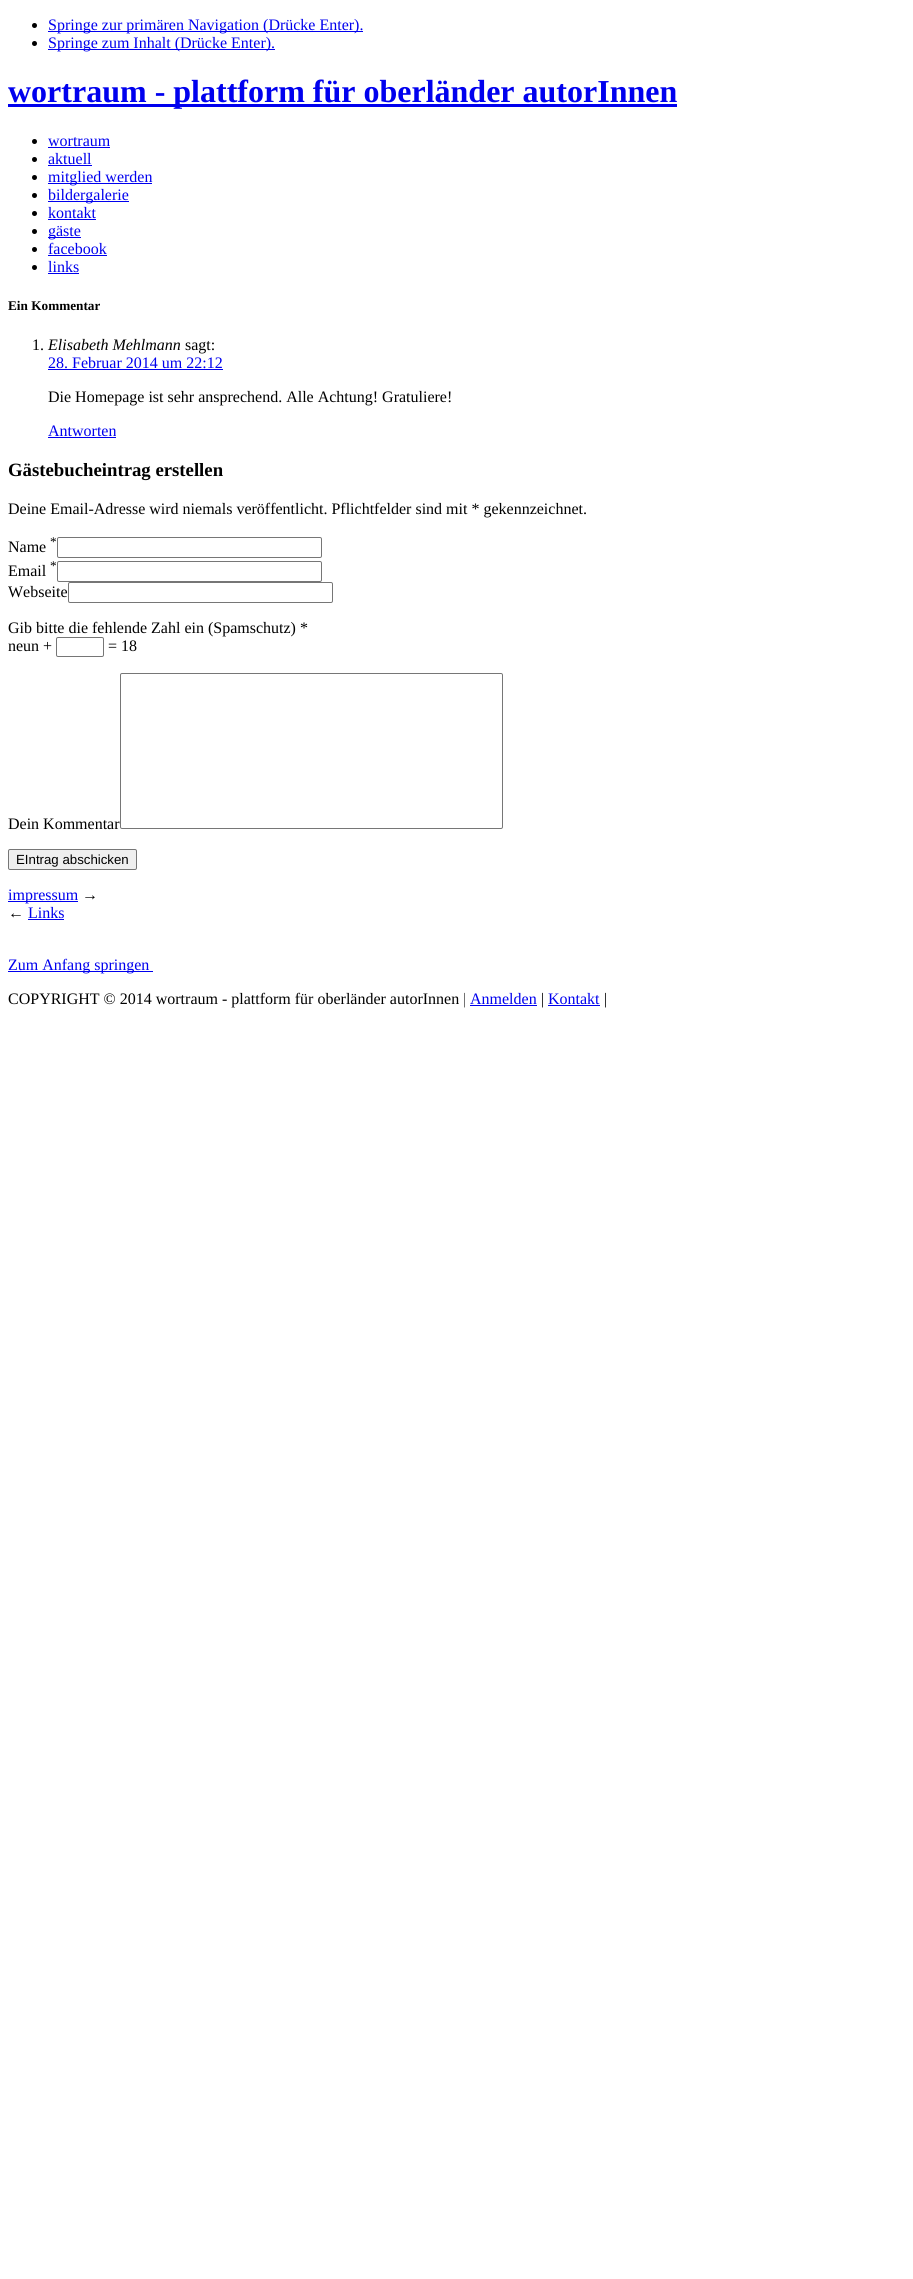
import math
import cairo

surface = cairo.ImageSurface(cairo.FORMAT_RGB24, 913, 2279)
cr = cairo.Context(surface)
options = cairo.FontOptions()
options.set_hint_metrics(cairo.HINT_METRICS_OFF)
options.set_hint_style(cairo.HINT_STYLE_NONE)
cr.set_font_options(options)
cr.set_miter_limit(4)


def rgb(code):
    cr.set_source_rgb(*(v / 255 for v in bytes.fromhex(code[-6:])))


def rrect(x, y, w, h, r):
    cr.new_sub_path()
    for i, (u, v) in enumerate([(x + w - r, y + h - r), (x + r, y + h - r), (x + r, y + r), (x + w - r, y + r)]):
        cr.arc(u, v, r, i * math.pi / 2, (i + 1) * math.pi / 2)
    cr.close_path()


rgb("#ffffff")
cr.paint()
rgb("#000000")
cr.arc(34.5, 25.5, 2.5, 0, 2 * math.pi)
cr.fill()
rgb("#0000ee")
cr.rectangle(48, 31, 315, 1)
cr.fill()
rgb("#000000")
cr.arc(34.5, 43.5, 2.5, 0, 2 * math.pi)
cr.fill()
rgb("#0000ee")
cr.rectangle(48, 49, 227, 1)
cr.fill()
cr.rectangle(8, 104, 669, 3)
cr.fill()
rgb("#000000")
cr.arc(34.5, 141.5, 2.5, 0, 2 * math.pi)
cr.fill()
rgb("#0000ee")
cr.rectangle(48, 147, 62, 1)
cr.fill()
rgb("#000000")
cr.arc(34.5, 159.5, 2.5, 0, 2 * math.pi)
cr.fill()
rgb("#0000ee")
cr.rectangle(48, 165, 44, 1)
cr.fill()
rgb("#000000")
cr.arc(34.5, 177.5, 2.5, 0, 2 * math.pi)
cr.fill()
rgb("#0000ee")
cr.rectangle(48, 183, 104, 1)
cr.fill()
rgb("#000000")
cr.arc(34.5, 195.5, 2.5, 0, 2 * math.pi)
cr.fill()
rgb("#0000ee")
cr.rectangle(48, 201, 81, 1)
cr.fill()
rgb("#000000")
cr.arc(34.5, 213.5, 2.5, 0, 2 * math.pi)
cr.fill()
rgb("#0000ee")
cr.rectangle(48, 219, 48, 1)
cr.fill()
rgb("#000000")
cr.arc(34.5, 231.5, 2.5, 0, 2 * math.pi)
cr.fill()
rgb("#0000ee")
cr.rectangle(48, 237, 33, 1)
cr.fill()
rgb("#000000")
cr.arc(34.5, 249.5, 2.5, 0, 2 * math.pi)
cr.fill()
rgb("#0000ee")
cr.rectangle(48, 255, 59, 1)
cr.fill()
rgb("#000000")
cr.arc(34.5, 267.5, 2.5, 0, 2 * math.pi)
cr.fill()
for x, y, w, h, color in [
    (48, 273, 31, 1, "#0000ee"),
    (48, 369, 175, 1, "#0000ee"),
    (48, 437, 68, 1, "#0000ee"),
]:
    rgb(color)
    cr.rectangle(x, y, w, h)
    cr.fill()
rrect(57.5, 537.5, 264, 20, 1.5)
rgb("#767676")
cr.set_line_width(1)
cr.stroke()
rrect(57.5, 561.5, 264, 20, 1.5)
cr.stroke()
rrect(68.5, 582.5, 264, 20, 1.5)
cr.stroke()
rrect(56.5, 637.5, 47, 19, 1.5)
cr.stroke()
rrect(120.5, 673.5, 382, 155, 1.5)
cr.stroke()
rgb("#efefef")
rrect(8.5, 849.5, 128, 20, 1.5)
cr.fill_preserve()
rgb("#767676")
cr.stroke()
for x, y, w, h, color in [
    (8, 901, 70, 1, "#0000ee"),
    (28, 919, 36, 1, "#0000ee"),
    (8, 971, 141, 1, "#0000ee"),
    (149, 971, 4, 1, "#0000ee"),
    (470, 1005, 67, 1, "#0000ee"),
    (548, 1005, 52, 1, "#0000ee"),
]:
    rgb(color)
    cr.rectangle(x, y, w, h)
    cr.fill()
cr.select_font_face("Liberation Serif")
cr.set_font_size(16)
cr.move_to(48, 30)
cr.show_text("Springe zur primären Navigation (Drücke Enter).")
cr.move_to(48, 48)
cr.show_text("Springe zum Inhalt (Drücke Enter).")
cr.select_font_face("Liberation Serif", cairo.FONT_SLANT_NORMAL, cairo.FONT_WEIGHT_BOLD)
cr.set_font_size(32)
cr.move_to(8, 102)
cr.show_text("wortraum - plattform für oberländer autorInnen")
cr.select_font_face("Liberation Serif")
cr.set_font_size(16)
for x, y, s in [
    (48, 146, "wortraum"),
    (48, 164, "aktuell"),
    (48, 182, "mitglied werden"),
    (48, 200, "bildergalerie"),
    (48, 218, "kontakt"),
    (48, 236, "gäste"),
    (48, 254, "facebook"),
    (48, 272, "links"),
]:
    cr.move_to(x, y)
    cr.show_text(s)
cr.select_font_face("Liberation Serif", cairo.FONT_SLANT_NORMAL, cairo.FONT_WEIGHT_BOLD)
cr.set_font_size(13.25)
rgb("#000000")
cr.move_to(8, 310)
cr.show_text("Ein Kommentar")
cr.select_font_face("Liberation Serif")
cr.set_font_size(16)
cr.move_to(32, 350)
cr.show_text("1.")
cr.select_font_face("Liberation Serif", cairo.FONT_SLANT_ITALIC)
cr.move_to(48, 350)
cr.show_text("Elisabeth Mehlmann")
cr.select_font_face("Liberation Serif")
cr.move_to(185, 350)
cr.show_text("sagt:")
rgb("#0000ee")
cr.move_to(48, 368)
cr.show_text("28. Februar 2014 um 22:12")
rgb("#000000")
cr.move_to(48, 402)
cr.show_text("Die Homepage ist sehr ansprechend. Alle Achtung! Gratuliere!")
rgb("#0000ee")
cr.move_to(48, 436)
cr.show_text("Antworten")
cr.select_font_face("Liberation Serif", cairo.FONT_SLANT_NORMAL, cairo.FONT_WEIGHT_BOLD)
cr.set_font_size(18.75)
rgb("#000000")
cr.move_to(8, 476)
cr.show_text("Gästebucheintrag erstellen")
cr.select_font_face("Liberation Serif")
cr.set_font_size(16)
cr.move_to(8, 514)
cr.show_text("Deine Email-Adresse wird niemals veröffentlicht. Pflichtfelder sind mit * gekennzeichnet.")
cr.move_to(8, 552)
cr.show_text("Name")
cr.set_font_size(13.25)
cr.move_to(50, 546)
cr.show_text("*")
cr.set_font_size(16)
cr.move_to(8, 576)
cr.show_text("Email")
cr.set_font_size(13.25)
cr.move_to(50, 570)
cr.show_text("*")
cr.set_font_size(16)
for x, y, s in [
    (8, 597, "Webseite"),
    (8, 633, "Gib bitte die fehlende Zahl ein (Spamschutz) *"),
    (8, 651, "neun +"),
    (108, 651, "= 18"),
    (8, 829, "Dein Kommentar"),
]:
    cr.move_to(x, y)
    cr.show_text(s)
cr.select_font_face("Liberation Sans")
cr.set_font_size(13.25)
cr.move_to(16, 864)
cr.show_text("EIntrag abschicken")
cr.select_font_face("Liberation Serif")
cr.set_font_size(16)
rgb("#0000ee")
cr.move_to(8, 900)
cr.show_text("impressum")
rgb("#000000")
cr.move_to(82, 900)
cr.show_text("→")
cr.move_to(8, 918)
cr.show_text("←")
rgb("#0000ee")
cr.move_to(28, 918)
cr.show_text("Links")
cr.move_to(8, 970)
cr.show_text("Zum Anfang springen")
rgb("#000000")
cr.move_to(8, 1004)
cr.show_text("COPYRIGHT © 2014 wortraum - plattform für oberländer autorInnen |")
rgb("#0000ee")
cr.move_to(470, 1004)
cr.show_text("Anmelden")
rgb("#000000")
cr.move_to(541, 1004)
cr.show_text("|")
rgb("#0000ee")
cr.move_to(548, 1004)
cr.show_text("Kontakt")
rgb("#000000")
cr.move_to(604, 1004)
cr.show_text("|")
surface.write_to_png("page.png")
